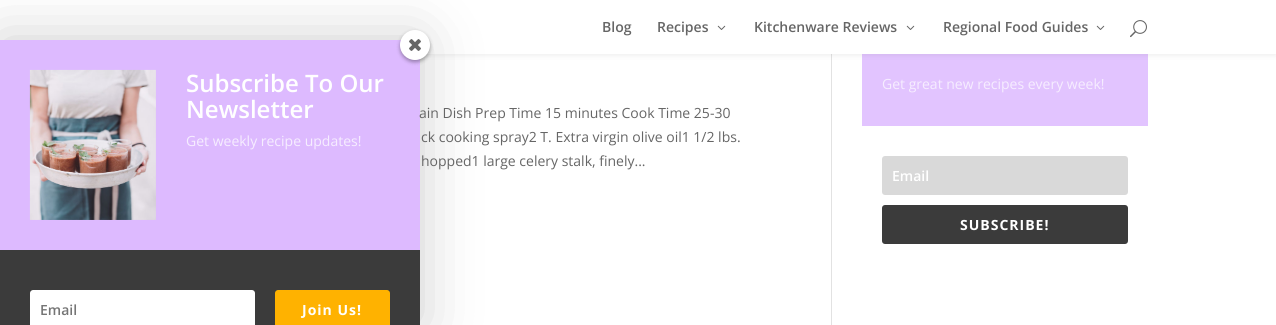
import math
import cairo

surface = cairo.ImageSurface(cairo.FORMAT_RGB24, 1276, 325)
cr = cairo.Context(surface)
options = cairo.FontOptions()
options.set_hint_metrics(cairo.HINT_METRICS_OFF)
options.set_hint_style(cairo.HINT_STYLE_NONE)
cr.set_font_options(options)
cr.set_miter_limit(4)


def rgb(code):
    cr.set_source_rgb(*(v / 255 for v in bytes.fromhex(code[-6:])))


def tracked(x, y, s, letter, word):
    cr.move_to(x, y)
    for ch in s:
        cr.show_text(ch)
        cr.rel_move_to(letter + word * (ch == ' '), 0)


def rrect(x, y, w, h, r):
    cr.new_sub_path()
    for i, (u, v) in enumerate([(x + w - r, y + h - r), (x + r, y + h - r), (x + r, y + r), (x + w - r, y + r)]):
        cr.arc(u, v, r, i * math.pi / 2, (i + 1) * math.pi / 2)
    cr.close_path()


def soft_shadow(x, y, w, h, r, blur, alpha):
    cr.push_group_with_content(cairo.CONTENT_ALPHA)
    cr.set_operator(cairo.OPERATOR_SOURCE)
    for i in range(15, -16, -2):
        e = blur * i / 6
        if min(w, h) + 2 * e > 0:
            cr.set_source_rgba(0, 0, 0, alpha * math.erfc((i - 1) / 8.5) / 2)
            rrect(x - e, y - e, w + 2 * e, h + 2 * e, max(0, min(r + e + blur * .6, min(w, h) / 2 + e)))
            cr.fill()
    cr.mask(cr.pop_group())


def image(path, x, y, w, h):
    cr.save()
    cr.set_source_surface(cairo.ImageSurface.create_from_png(path), x, y)
    cr.rectangle(x, y, w, h)
    cr.fill()
    cr.restore()


rgb("#ffffff")
cr.paint()
rgb("#e2e2e2")
cr.rectangle(831, 54, 1, 271)
cr.fill()
rgb("#e2c4ff")
cr.rectangle(862, 54, 286, 72)
cr.fill()
rgb("#000000")
soft_shadow(0, 0, 1276, 54, 0, 3.5, 0.1)
rgb("#ffffff")
cr.rectangle(0, 0, 1276, 54)
cr.fill()
rgb("#000000")
soft_shadow(0, 40, 420, 285, 0, 30, 0.2)
rgb("#ddbaff")
cr.rectangle(0, 40, 420, 210)
cr.fill()
rgb("#000000")
soft_shadow(400, 32, 30, 30, 15, 2, 0.34)
rgb("#ffffff")
cr.arc(415, 45, 15, 0, 2 * math.pi)
cr.fill()
image("img/1.png", 409, 39, 12, 12)
image("img/2.png", 29, 69, 127, 151)
rgb("#3b3b3b")
cr.rectangle(0, 250, 420, 75)
cr.fill()
rgb("#ffffff")
cr.new_path()
cr.move_to(33, 290)
cr.line_to(252, 290)
cr.curve_to(253.5, 290, 255, 291.5, 255, 293)
cr.line_to(255, 325)
cr.line_to(30, 325)
cr.line_to(30, 293)
cr.curve_to(30, 291.5, 31.5, 290, 33, 290)
cr.close_path()
cr.fill()
rgb("#ffb200")
cr.new_path()
cr.move_to(278, 290)
cr.line_to(387, 290)
cr.curve_to(388.5, 290, 390, 291.5, 390, 293)
cr.line_to(390, 325)
cr.line_to(275, 325)
cr.line_to(275, 293)
cr.curve_to(275, 291.5, 276.5, 290, 278, 290)
cr.close_path()
cr.fill()
image("img/3.png", 717, 25, 9, 5)
image("img/3.png", 906, 25, 9, 5)
image("img/3.png", 1096, 25, 9, 5)
image("img/4.png", 1130, 20, 17, 18)
rgb("#d9d9d9")
rrect(882, 156, 246, 39, 3)
cr.fill()
rgb("#3b3b3b")
rrect(882, 205, 246, 39, 3)
cr.fill()
cr.select_font_face("Open Sans SemiBold")
cr.set_font_size(24)
rgb("#ffffff")
cr.move_to(186, 92)
cr.show_text("Subscribe To Our")
cr.move_to(186, 118)
cr.show_text("Newsletter")
cr.select_font_face("Open Sans")
cr.set_font_size(14)
rgb("#f6edff")
cr.move_to(186, 146)
cr.show_text("Get weekly recipe updates!")
cr.select_font_face("Open Sans SemiBold")
rgb("#757575")
cr.move_to(40, 315)
cr.show_text("Email")
cr.select_font_face("Open Sans", cairo.FONT_SLANT_NORMAL, cairo.FONT_WEIGHT_BOLD)
rgb("#ffffff")
tracked(302, 315, "Join Us!", 1, 0)
cr.select_font_face("Open Sans SemiBold")
rgb("#666666")
for x, y, s in [
    (602, 32, "Blog"),
    (657, 32, "Recipes"),
    (754, 32, "Kitchenware Reviews"),
    (943, 32, "Regional Food Guides"),
]:
    cr.move_to(x, y)
    cr.show_text(s)
cr.select_font_face("Open Sans")
for x, y, s in [
    (419, 118, "ain Dish Prep Time 15 minutes Cook Time 25-30"),
    (421, 142, "ck cooking spray2 T. Extra virgin olive oil1 1/2 lbs."),
    (421, 166, "hopped1 large celery stalk, finely..."),
]:
    cr.move_to(x, y)
    cr.show_text(s)
rgb("#f6edff")
cr.move_to(882, 89)
cr.show_text("Get great new recipes every week!")
cr.select_font_face("Open Sans SemiBold")
rgb("#ffffff")
cr.move_to(892, 181)
cr.show_text("Email")
cr.select_font_face("Open Sans", cairo.FONT_SLANT_NORMAL, cairo.FONT_WEIGHT_BOLD)
tracked(960, 230, "SUBSCRIBE!", 1, 0)
surface.write_to_png("page.png")
